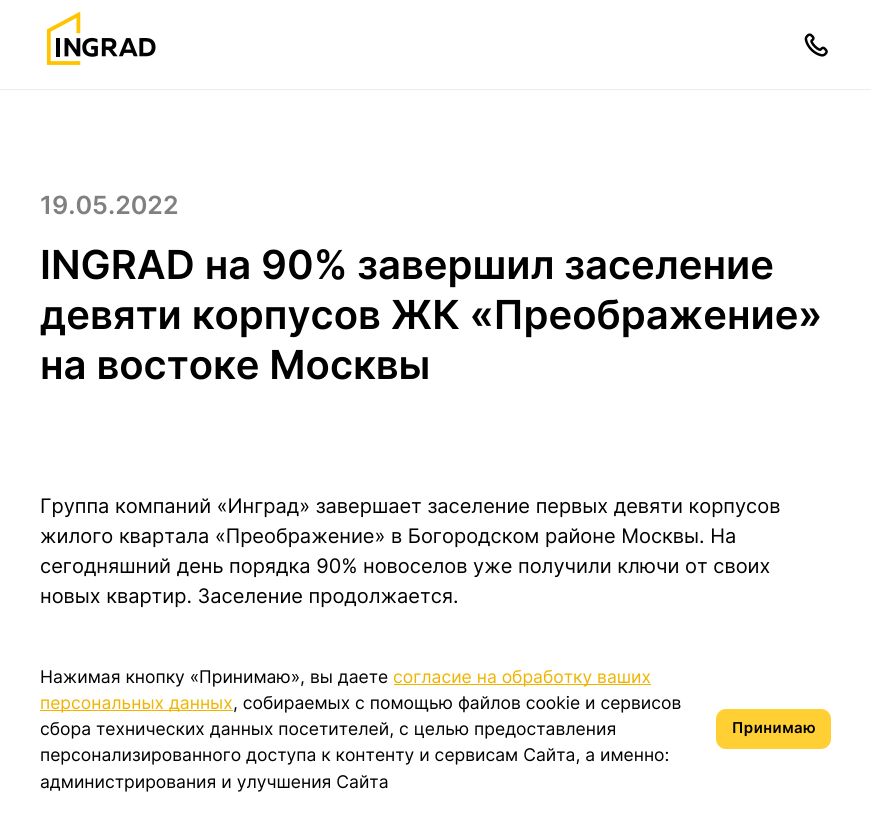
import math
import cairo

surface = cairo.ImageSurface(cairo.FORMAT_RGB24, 871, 818)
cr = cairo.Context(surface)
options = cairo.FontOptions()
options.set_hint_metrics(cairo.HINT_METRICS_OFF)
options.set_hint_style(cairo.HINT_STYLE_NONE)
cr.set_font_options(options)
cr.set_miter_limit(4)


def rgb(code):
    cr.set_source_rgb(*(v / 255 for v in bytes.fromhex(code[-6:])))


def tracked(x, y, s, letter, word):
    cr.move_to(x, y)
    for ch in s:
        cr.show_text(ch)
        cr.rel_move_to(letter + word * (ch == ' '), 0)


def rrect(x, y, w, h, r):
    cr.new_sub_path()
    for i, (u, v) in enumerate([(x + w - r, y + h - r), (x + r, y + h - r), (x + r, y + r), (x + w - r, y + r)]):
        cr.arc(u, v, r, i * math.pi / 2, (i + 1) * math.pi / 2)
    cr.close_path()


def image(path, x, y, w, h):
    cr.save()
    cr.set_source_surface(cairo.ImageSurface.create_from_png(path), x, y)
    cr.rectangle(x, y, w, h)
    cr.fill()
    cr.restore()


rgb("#ffffff")
cr.paint()
rgb("#ededed")
cr.rectangle(0, 89, 871, 1)
cr.fill()
image("img/1.png", 46, 11, 110, 54)
image("img/2.png", 804, 33, 24, 24)
rgb("#f0b400")
cr.rectangle(394, 684, 257, 1)
cr.fill()
cr.rectangle(40, 710, 193, 1)
cr.fill()
rgb("#ffcf33")
rrect(716, 709, 115, 40, 10)
cr.fill()
cr.select_font_face("Inter SemiBold")
cr.set_font_size(25)
rgb("#808080")
cr.move_to(40, 214)
cr.show_text("19.05.2022")
cr.set_font_size(40)
rgb("#000000")
for x, y, s in [
    (40, 279, "INGRAD на 90% завершил заселение"),
    (40, 329, "девяти корпусов ЖК «Преображение»"),
    (40, 379, "на востоке Москвы"),
]:
    cr.move_to(x, y)
    cr.show_text(s)
cr.select_font_face("Inter")
cr.set_font_size(20)
for x, y, s in [
    (40, 513, "Группа компаний «Инград» завершает заселение первых девяти корпусов"),
    (40, 543, "жилого квартала «Преображение» в Богородском районе Москвы. На"),
    (40, 573, "сегодняшний день порядка 90% новоселов уже получили ключи от своих"),
    (40, 603, "новых квартир. Заселение продолжается."),
]:
    cr.move_to(x, y)
    cr.show_text(s)
cr.set_font_size(17.5)
cr.move_to(40, 683)
cr.show_text("Нажимая кнопку «Принимаю», вы даете")
rgb("#f0b400")
cr.move_to(393, 683)
cr.show_text("согласие на обработку ваших")
cr.move_to(40, 709)
cr.show_text("персональных данных")
rgb("#000000")
for x, y, s in [
    (233, 709, ", собираемых с помощью файлов cookie и сервисов"),
    (40, 735, "сбора технических данных посетителей, с целью предоставления"),
    (40, 761, "персонализированного доступа к контенту и сервисам Сайта, а именно:"),
    (40, 788, "администрирования и улучшения Сайта"),
]:
    cr.move_to(x, y)
    cr.show_text(s)
cr.select_font_face("Inter SemiBold")
cr.set_font_size(15)
tracked(732, 733, "Принимаю", 0.5, 0)
surface.write_to_png("page.png")
